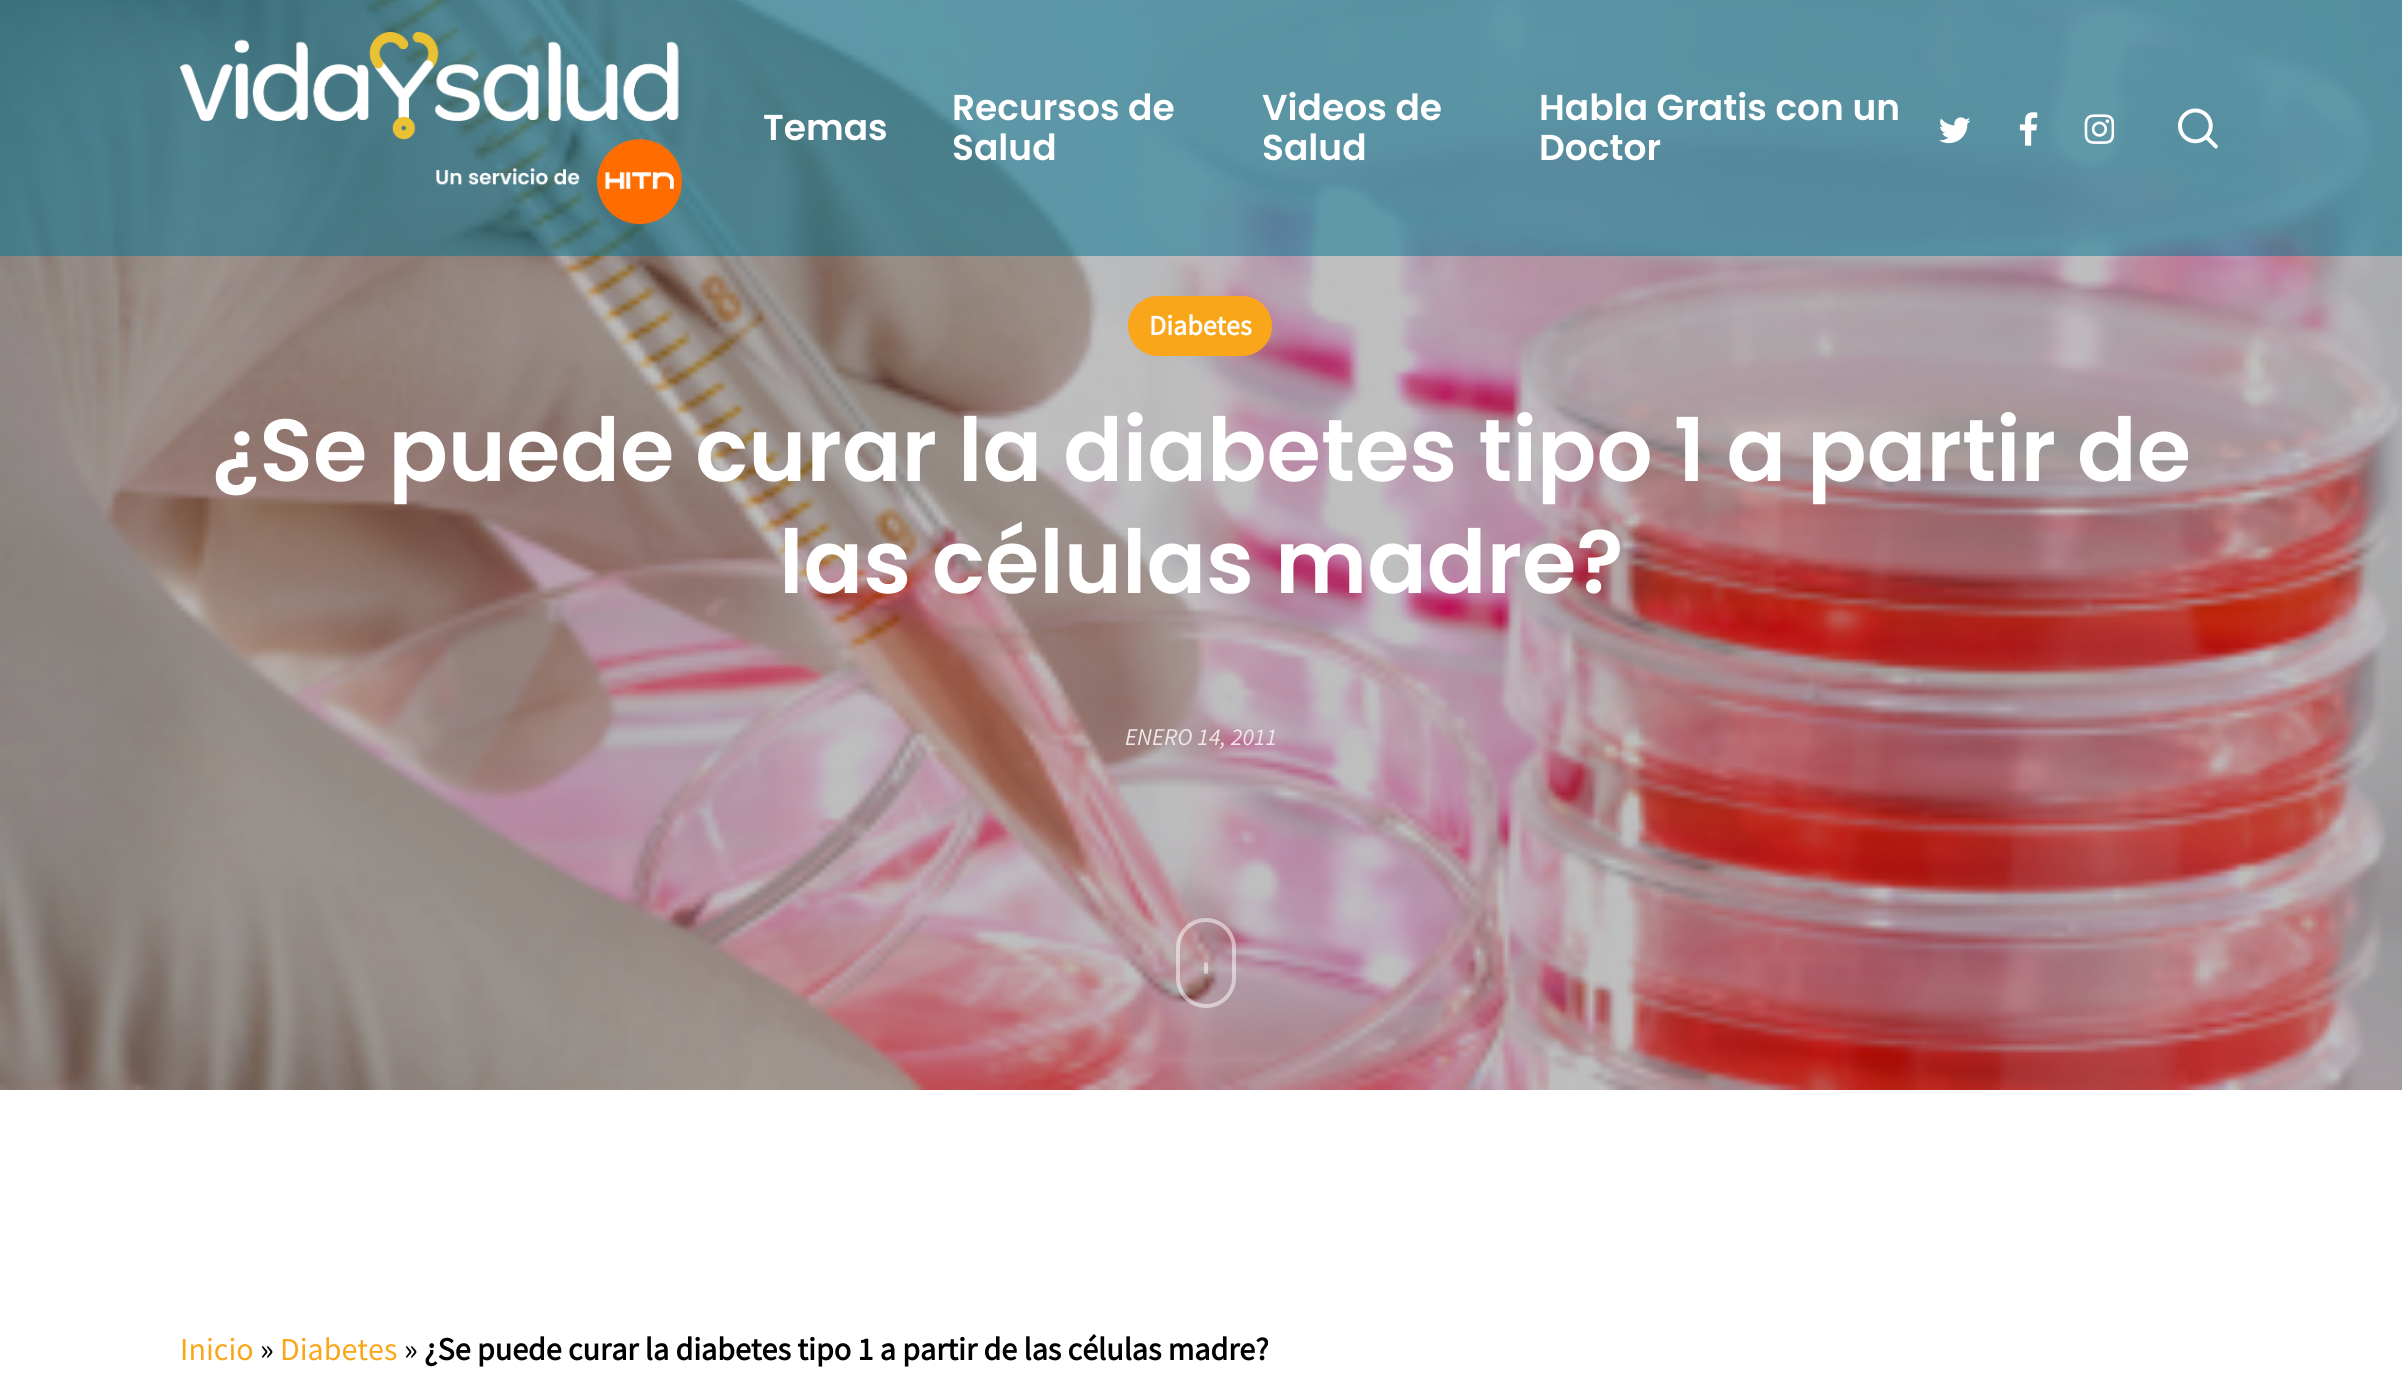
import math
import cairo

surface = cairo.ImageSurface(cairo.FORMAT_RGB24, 2402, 1383)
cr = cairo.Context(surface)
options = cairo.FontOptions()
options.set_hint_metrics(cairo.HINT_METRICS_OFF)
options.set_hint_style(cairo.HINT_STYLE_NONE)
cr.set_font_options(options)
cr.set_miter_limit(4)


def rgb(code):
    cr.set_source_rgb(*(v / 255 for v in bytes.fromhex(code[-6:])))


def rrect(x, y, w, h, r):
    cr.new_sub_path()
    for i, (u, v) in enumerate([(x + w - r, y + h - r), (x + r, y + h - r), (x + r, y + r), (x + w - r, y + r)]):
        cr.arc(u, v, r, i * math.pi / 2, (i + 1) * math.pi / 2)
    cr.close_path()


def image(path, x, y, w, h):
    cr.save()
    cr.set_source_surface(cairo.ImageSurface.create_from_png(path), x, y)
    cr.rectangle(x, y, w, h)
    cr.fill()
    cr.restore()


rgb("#ffffff")
cr.paint()
image("img/6.png", 0, 0, 2402, 1090)
cr.set_source_rgba(0, 0.459, 0.573, 0.5)
cr.rectangle(0, 0, 2402, 256)
cr.fill()
image("img/1.png", 180, 32, 502, 192)
image("img/2.png", 1939, 117, 32, 27)
image("img/3.png", 2019, 112, 19, 34)
image("img/4.png", 2084, 114, 30, 30)
image("img/5.png", 2178, 108, 40, 41)
rgb("#faa61a")
rrect(1128, 296, 144, 60, 30)
cr.fill()
cr.set_source_rgba(1, 1, 1, 0.5)
rrect(1204, 962, 4, 12, 2)
cr.fill()
rrect(1178, 920, 56, 86, 28)
cr.set_line_width(4)
cr.stroke()
cr.select_font_face("Poppins SemiBold")
cr.set_font_size(36)
rgb("#ffffff")
for x, y, s in [
    (763, 140, "Temas"),
    (952, 120, "Recursos de"),
    (952, 160, "Salud"),
    (1262, 120, "Videos de"),
    (1262, 160, "Salud"),
    (1539, 120, "Habla Gratis con un"),
    (1539, 160, "Doctor"),
]:
    cr.move_to(x, y)
    cr.show_text(s)
cr.select_font_face("Source Sans Pro", cairo.FONT_SLANT_NORMAL, cairo.FONT_WEIGHT_BOLD)
cr.set_font_size(28)
cr.move_to(1149, 335)
cr.show_text("Diabetes")
cr.select_font_face("Poppins SemiBold")
cr.set_font_size(88)
cr.move_to(212, 481)
cr.show_text("¿Se puede curar la diabetes tipo 1 a partir de")
cr.move_to(779, 593)
cr.show_text("las células madre?")
cr.select_font_face("Source Sans Pro", cairo.FONT_SLANT_ITALIC)
cr.set_font_size(24)
rgb("#efe8ea")
cr.move_to(1125, 745)
cr.show_text("ENERO 14, 2011")
cr.select_font_face("Source Sans Pro")
cr.set_font_size(32)
rgb("#faa61a")
cr.move_to(180, 1360)
cr.show_text("Inicio")
rgb("#000000")
cr.move_to(260, 1360)
cr.show_text("»")
rgb("#faa61a")
cr.move_to(280, 1360)
cr.show_text("Diabetes")
rgb("#000000")
cr.move_to(404, 1360)
cr.show_text("»")
cr.select_font_face("Source Sans Pro", cairo.FONT_SLANT_NORMAL, cairo.FONT_WEIGHT_BOLD)
cr.move_to(424, 1360)
cr.show_text("¿Se puede curar la diabetes tipo 1 a partir de las células madre?")
surface.write_to_png("page.png")
